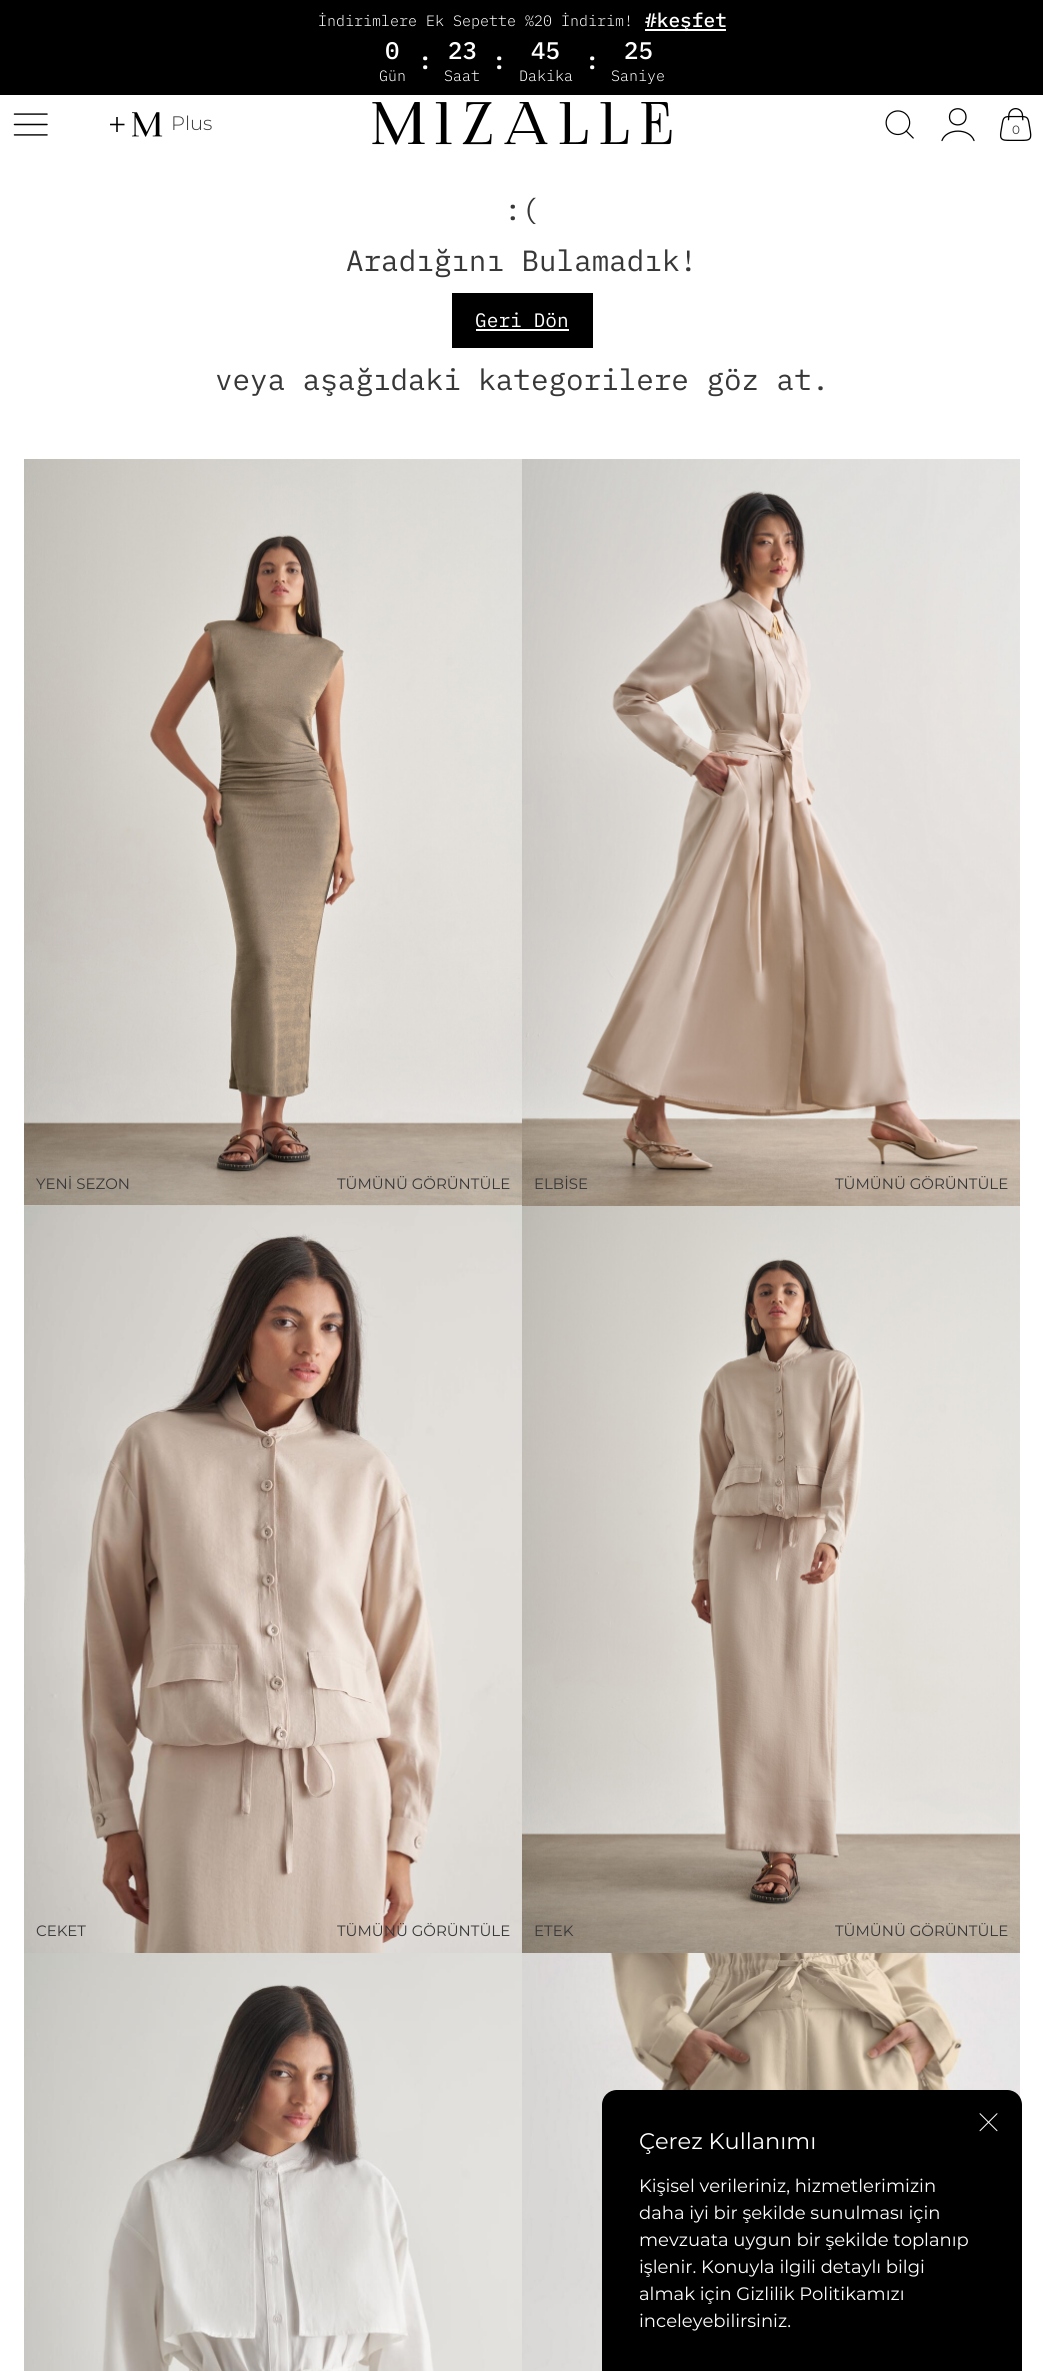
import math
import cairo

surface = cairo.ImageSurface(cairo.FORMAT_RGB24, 1043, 2371)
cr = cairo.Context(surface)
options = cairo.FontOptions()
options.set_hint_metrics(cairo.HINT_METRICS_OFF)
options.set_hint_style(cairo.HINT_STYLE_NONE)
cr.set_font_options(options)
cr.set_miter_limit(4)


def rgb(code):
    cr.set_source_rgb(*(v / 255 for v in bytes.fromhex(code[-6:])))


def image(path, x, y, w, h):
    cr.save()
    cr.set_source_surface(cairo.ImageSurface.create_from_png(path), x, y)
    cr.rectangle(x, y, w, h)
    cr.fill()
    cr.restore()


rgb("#ffffff")
cr.paint()
rgb("#000000")
cr.rectangle(0, 0, 1043, 95)
cr.fill()
rgb("#ffffff")
cr.rectangle(645, 29, 81, 2)
cr.fill()
image("img/1.png", 13, 113, 35, 23)
image("img/2.png", 110, 112, 53, 25)
image("img/3.png", 372, 102, 300, 43)
image("img/4.png", 885, 110, 29, 29)
cr.new_path()
cr.move_to(974, 140.5)
cr.curve_to(969.5, 128, 946.5, 128, 942, 140.5)
cr.move_to(966, 117)
cr.curve_to(966, 127.5, 949.5, 127.5, 949.5, 117)
cr.curve_to(949.5, 106, 966, 106, 966, 117)
cr.close_path()
rgb("#000000")
cr.set_line_width(1.3)
cr.set_line_cap(cairo.LINE_CAP_ROUND)
cr.stroke()
image("img/5.png", 999, 108, 33, 33)
cr.rectangle(452, 293, 141, 55)
cr.fill()
rgb("#ffffff")
cr.rectangle(476, 329, 93, 2)
cr.fill()
image("img/6.png", 24, 459, 498, 747)
image("img/7.png", 522, 459, 498, 747)
image("img/8.png", 24, 1206, 498, 747)
image("img/9.png", 522, 1206, 498, 747)
image("img/10.png", 24, 1953, 498, 418)
image("img/11.png", 522, 1953, 498, 418)
rgb("#000000")
cr.new_path()
cr.move_to(617, 2090)
cr.line_to(1007, 2090)
cr.curve_to(1015.5, 2090, 1022, 2096.5, 1022, 2105)
cr.line_to(1022, 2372)
cr.line_to(602, 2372)
cr.line_to(602, 2105)
cr.curve_to(602, 2096.5, 608.5, 2090, 617, 2090)
cr.close_path()
cr.fill()
image("img/12.png", 979, 2113, 19, 19)
cr.select_font_face("IBM Plex Mono Light")
cr.set_font_size(15)
rgb("#ffffff")
cr.move_to(318, 26)
cr.show_text("İndirimlere Ek Sepette %20 İndirim!")
cr.select_font_face("IBM Plex Mono Medium")
cr.set_font_size(19.5)
cr.move_to(645, 27)
cr.show_text("#keşfet")
cr.set_font_size(24)
cr.move_to(385, 59)
cr.show_text("0")
cr.select_font_face("IBM Plex Mono Light")
cr.set_font_size(15)
cr.move_to(379, 81)
cr.show_text("Gün")
cr.select_font_face("IBM Plex Mono Medium")
cr.set_font_size(24)
cr.move_to(418, 69)
cr.show_text(":")
cr.move_to(448, 59)
cr.show_text("23")
cr.select_font_face("IBM Plex Mono Light")
cr.set_font_size(15)
cr.move_to(444, 81)
cr.show_text("Saat")
cr.select_font_face("IBM Plex Mono Medium")
cr.set_font_size(24)
cr.move_to(492, 69)
cr.show_text(":")
cr.move_to(531, 59)
cr.show_text("45")
cr.select_font_face("IBM Plex Mono Light")
cr.set_font_size(15)
cr.move_to(519, 81)
cr.show_text("Dakika")
cr.select_font_face("IBM Plex Mono Medium")
cr.set_font_size(24)
cr.move_to(585, 69)
cr.show_text(":")
cr.move_to(624, 59)
cr.show_text("25")
cr.select_font_face("IBM Plex Mono Light")
cr.set_font_size(15)
cr.move_to(611, 81)
cr.show_text("Saniye")
cr.select_font_face("Montserrat Light")
cr.set_font_size(19.5)
rgb("#373738")
cr.move_to(171, 130)
cr.show_text("Plus")
cr.select_font_face("Montserrat")
cr.set_font_size(12)
cr.move_to(1012, 134)
cr.show_text("0")
cr.select_font_face("IBM Plex Mono")
cr.set_font_size(29.25)
cr.move_to(504, 220)
cr.show_text(":(")
cr.move_to(346, 271)
cr.show_text("Aradığını Bulamadık!")
cr.set_font_size(19.5)
rgb("#ffffff")
cr.move_to(475, 327)
cr.show_text("Geri Dön")
cr.set_font_size(29.25)
rgb("#373738")
cr.move_to(215, 390)
cr.show_text("veya aşağıdaki kategorilere göz at.")
cr.select_font_face("Montserrat")
cr.set_font_size(15)
for x, y, s in [
    (36, 1189, "YENİ SEZON"),
    (337, 1189, "TÜMÜNÜ GÖRÜNTÜLE"),
    (534, 1189, "ELBİSE"),
    (835, 1189, "TÜMÜNÜ GÖRÜNTÜLE"),
    (36, 1936, "CEKET"),
    (337, 1936, "TÜMÜNÜ GÖRÜNTÜLE"),
    (534, 1936, "ETEK"),
    (835, 1936, "TÜMÜNÜ GÖRÜNTÜLE"),
]:
    cr.move_to(x, y)
    cr.show_text(s)
cr.set_font_size(22.5)
rgb("#ffffff")
cr.move_to(639, 2149)
cr.show_text("Çerez Kullanımı")
cr.set_font_size(18)
for x, y, s in [
    (639, 2192, "Kişisel verileriniz, hizmetlerimizin"),
    (639, 2219, "daha iyi bir şekilde sunulması için"),
    (639, 2246, "mevzuata uygun bir şekilde toplanıp"),
    (639, 2273, "işlenir. Konuyla ilgili detaylı bilgi"),
    (639, 2300, "almak için Gizlilik Politikamızı"),
    (639, 2327, "inceleyebilirsiniz."),
]:
    cr.move_to(x, y)
    cr.show_text(s)
surface.write_to_png("page.png")
